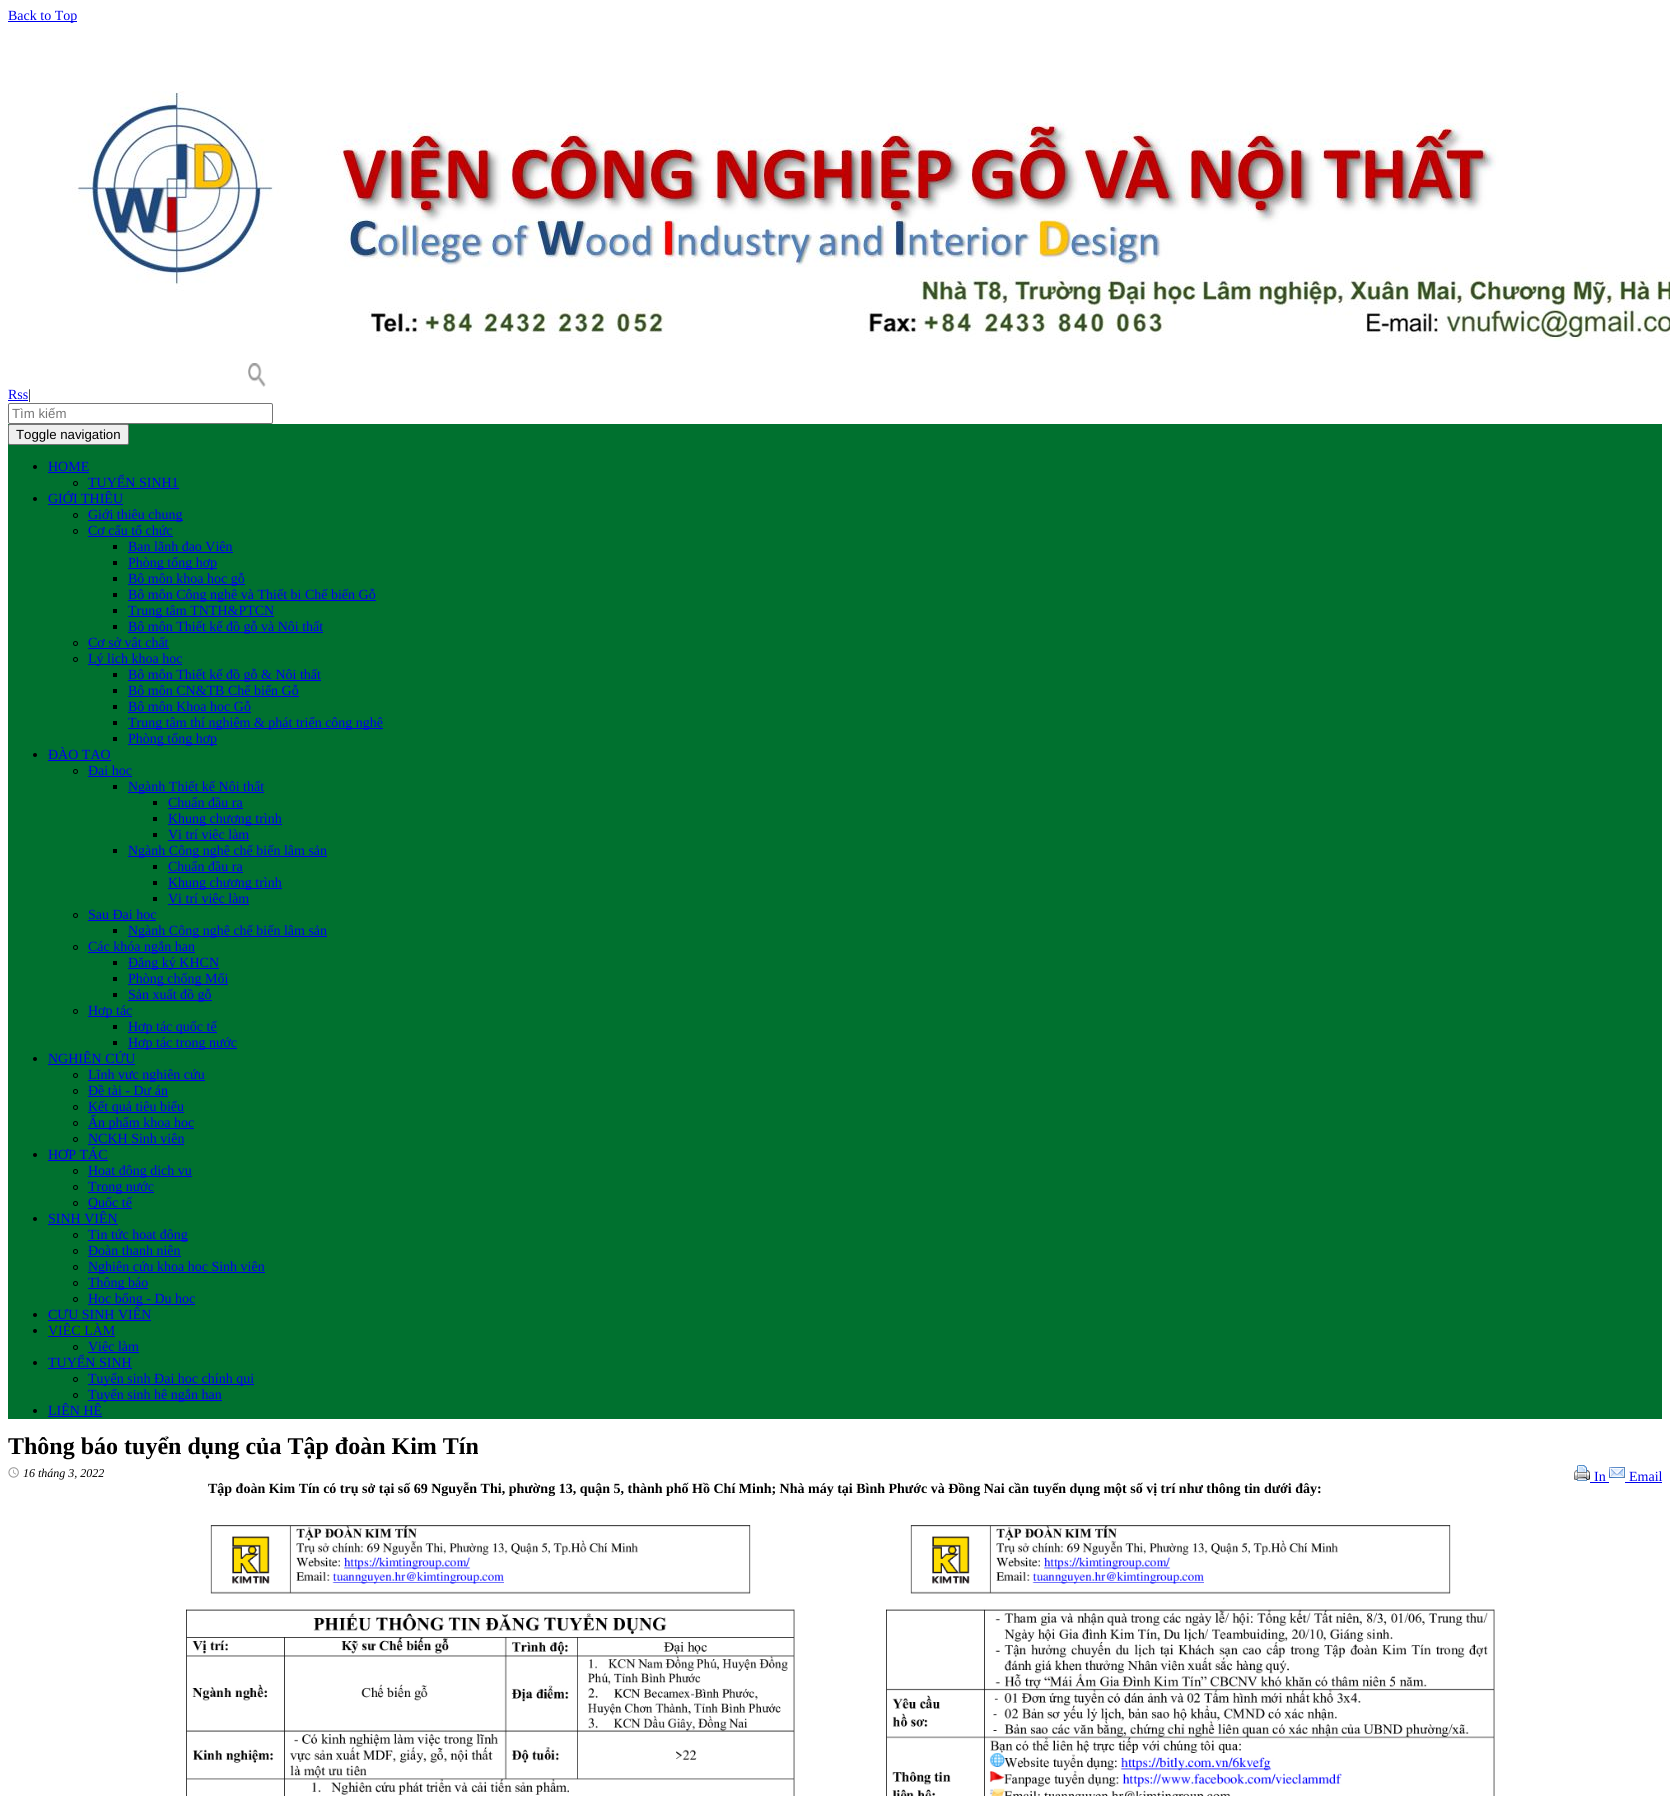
import math
import cairo

surface = cairo.ImageSurface(cairo.FORMAT_RGB24, 1670, 1796)
cr = cairo.Context(surface)
options = cairo.FontOptions()
options.set_hint_metrics(cairo.HINT_METRICS_OFF)
options.set_hint_style(cairo.HINT_STYLE_NONE)
cr.set_font_options(options)
cr.set_miter_limit(4)


def rgb(code):
    cr.set_source_rgb(*(v / 255 for v in bytes.fromhex(code[-6:])))


def rrect(x, y, w, h, r):
    cr.new_sub_path()
    for i, (u, v) in enumerate([(x + w - r, y + h - r), (x + r, y + h - r), (x + r, y + r), (x + w - r, y + r)]):
        cr.arc(u, v, r, i * math.pi / 2, (i + 1) * math.pi / 2)
    cr.close_path()


def image(path, x, y, w, h):
    cr.save()
    cr.set_source_surface(cairo.ImageSurface.create_from_png(path), x, y)
    cr.rectangle(x, y, w, h)
    cr.fill()
    cr.restore()


rgb("#ffffff")
cr.paint()
rgb("#0000ee")
cr.rectangle(8, 21, 69, 1)
cr.fill()
image("img/1.png", 72, 91, 1598, 250)
cr.rectangle(8, 400, 20, 1)
cr.fill()
image("img/2.png", 248, 363, 18, 24)
rrect(8.5, 403.5, 264, 20, 1.5)
rgb("#767676")
cr.set_line_width(1)
cr.stroke()
rgb("#00712f")
cr.rectangle(8, 424, 1654, 995)
cr.fill()
rgb("#efefef")
rrect(8.5, 424.5, 120, 20, 1.5)
cr.fill_preserve()
rgb("#767676")
cr.stroke()
rgb("#000000")
cr.arc(35, 467, 2, 0, 2 * math.pi)
cr.fill()
rgb("#0000ee")
cr.rectangle(48, 472, 41, 1)
cr.fill()
cr.arc(75.5, 483.5, 2, 0, 2 * math.pi)
rgb("#000000")
cr.stroke()
rgb("#0000ee")
cr.rectangle(88, 488, 91, 1)
cr.fill()
rgb("#000000")
cr.arc(35, 499, 2, 0, 2 * math.pi)
cr.fill()
rgb("#0000ee")
cr.rectangle(48, 504, 75, 1)
cr.fill()
cr.arc(75.5, 515.5, 2, 0, 2 * math.pi)
rgb("#000000")
cr.stroke()
rgb("#0000ee")
cr.rectangle(88, 520, 95, 1)
cr.fill()
cr.arc(75.5, 531.5, 2, 0, 2 * math.pi)
rgb("#000000")
cr.stroke()
for x, y, w, h, color in [
    (88, 536, 85, 1, "#0000ee"),
    (113, 545, 4, 4, "#000000"),
    (128, 552, 105, 1, "#0000ee"),
    (113, 561, 4, 4, "#000000"),
    (128, 568, 89, 1, "#0000ee"),
    (113, 577, 4, 4, "#000000"),
    (128, 584, 117, 1, "#0000ee"),
    (113, 593, 4, 4, "#000000"),
    (128, 600, 248, 1, "#0000ee"),
    (113, 609, 4, 4, "#000000"),
    (128, 616, 146, 1, "#0000ee"),
    (113, 625, 4, 4, "#000000"),
    (128, 632, 195, 1, "#0000ee"),
]:
    rgb(color)
    cr.rectangle(x, y, w, h)
    cr.fill()
cr.arc(75.5, 643.5, 2, 0, 2 * math.pi)
rgb("#000000")
cr.stroke()
rgb("#0000ee")
cr.rectangle(88, 648, 81, 1)
cr.fill()
cr.arc(75.5, 659.5, 2, 0, 2 * math.pi)
rgb("#000000")
cr.stroke()
for x, y, w, h, color in [
    (88, 664, 94, 1, "#0000ee"),
    (113, 673, 4, 4, "#000000"),
    (128, 680, 193, 1, "#0000ee"),
    (113, 689, 4, 4, "#000000"),
    (128, 696, 171, 1, "#0000ee"),
    (113, 705, 4, 4, "#000000"),
    (128, 712, 123, 1, "#0000ee"),
    (113, 721, 4, 4, "#000000"),
    (128, 728, 255, 1, "#0000ee"),
    (113, 737, 4, 4, "#000000"),
    (128, 744, 89, 1, "#0000ee"),
]:
    rgb(color)
    cr.rectangle(x, y, w, h)
    cr.fill()
rgb("#000000")
cr.arc(35, 755, 2, 0, 2 * math.pi)
cr.fill()
rgb("#0000ee")
cr.rectangle(48, 760, 63, 1)
cr.fill()
cr.arc(75.5, 771.5, 2, 0, 2 * math.pi)
rgb("#000000")
cr.stroke()
for x, y, w, h, color in [
    (88, 776, 44, 1, "#0000ee"),
    (113, 785, 4, 4, "#000000"),
    (128, 792, 136, 1, "#0000ee"),
    (153, 801, 4, 4, "#000000"),
    (168, 808, 75, 1, "#0000ee"),
    (153, 817, 4, 4, "#000000"),
    (168, 824, 114, 1, "#0000ee"),
    (153, 833, 4, 4, "#000000"),
    (168, 840, 81, 1, "#0000ee"),
    (113, 849, 4, 4, "#000000"),
    (128, 856, 199, 1, "#0000ee"),
    (153, 865, 4, 4, "#000000"),
    (168, 872, 75, 1, "#0000ee"),
    (153, 881, 4, 4, "#000000"),
    (168, 888, 114, 1, "#0000ee"),
    (153, 897, 4, 4, "#000000"),
    (168, 904, 81, 1, "#0000ee"),
]:
    rgb(color)
    cr.rectangle(x, y, w, h)
    cr.fill()
cr.arc(75.5, 915.5, 2, 0, 2 * math.pi)
rgb("#000000")
cr.stroke()
for x, y, w, h, color in [
    (88, 920, 68, 1, "#0000ee"),
    (113, 929, 4, 4, "#000000"),
    (128, 936, 199, 1, "#0000ee"),
]:
    rgb(color)
    cr.rectangle(x, y, w, h)
    cr.fill()
cr.arc(75.5, 947.5, 2, 0, 2 * math.pi)
rgb("#000000")
cr.stroke()
for x, y, w, h, color in [
    (88, 952, 107, 1, "#0000ee"),
    (113, 961, 4, 4, "#000000"),
    (128, 968, 91, 1, "#0000ee"),
    (113, 977, 4, 4, "#000000"),
    (128, 984, 100, 1, "#0000ee"),
    (113, 993, 4, 4, "#000000"),
    (128, 1000, 84, 1, "#0000ee"),
]:
    rgb(color)
    cr.rectangle(x, y, w, h)
    cr.fill()
cr.arc(75.5, 1011.5, 2, 0, 2 * math.pi)
rgb("#000000")
cr.stroke()
for x, y, w, h, color in [
    (88, 1016, 44, 1, "#0000ee"),
    (113, 1025, 4, 4, "#000000"),
    (128, 1032, 89, 1, "#0000ee"),
    (113, 1041, 4, 4, "#000000"),
    (128, 1048, 109, 1, "#0000ee"),
]:
    rgb(color)
    cr.rectangle(x, y, w, h)
    cr.fill()
rgb("#000000")
cr.arc(35, 1059, 2, 0, 2 * math.pi)
cr.fill()
rgb("#0000ee")
cr.rectangle(48, 1064, 87, 1)
cr.fill()
cr.arc(75.5, 1075.5, 2, 0, 2 * math.pi)
rgb("#000000")
cr.stroke()
rgb("#0000ee")
cr.rectangle(88, 1080, 117, 1)
cr.fill()
cr.arc(75.5, 1091.5, 2, 0, 2 * math.pi)
rgb("#000000")
cr.stroke()
rgb("#0000ee")
cr.rectangle(88, 1096, 80, 1)
cr.fill()
cr.arc(75.5, 1107.5, 2, 0, 2 * math.pi)
rgb("#000000")
cr.stroke()
rgb("#0000ee")
cr.rectangle(88, 1112, 96, 1)
cr.fill()
cr.arc(75.5, 1123.5, 2, 0, 2 * math.pi)
rgb("#000000")
cr.stroke()
rgb("#0000ee")
cr.rectangle(88, 1128, 106, 1)
cr.fill()
cr.arc(75.5, 1139.5, 2, 0, 2 * math.pi)
rgb("#000000")
cr.stroke()
rgb("#0000ee")
cr.rectangle(88, 1144, 96, 1)
cr.fill()
rgb("#000000")
cr.arc(35, 1155, 2, 0, 2 * math.pi)
cr.fill()
rgb("#0000ee")
cr.rectangle(48, 1160, 60, 1)
cr.fill()
cr.arc(75.5, 1171.5, 2, 0, 2 * math.pi)
rgb("#000000")
cr.stroke()
rgb("#0000ee")
cr.rectangle(88, 1176, 104, 1)
cr.fill()
cr.arc(75.5, 1187.5, 2, 0, 2 * math.pi)
rgb("#000000")
cr.stroke()
rgb("#0000ee")
cr.rectangle(88, 1192, 66, 1)
cr.fill()
cr.arc(75.5, 1203.5, 2, 0, 2 * math.pi)
rgb("#000000")
cr.stroke()
rgb("#0000ee")
cr.rectangle(88, 1208, 44, 1)
cr.fill()
rgb("#000000")
cr.arc(35, 1219, 2, 0, 2 * math.pi)
cr.fill()
rgb("#0000ee")
cr.rectangle(48, 1224, 70, 1)
cr.fill()
cr.arc(75.5, 1235.5, 2, 0, 2 * math.pi)
rgb("#000000")
cr.stroke()
rgb("#0000ee")
cr.rectangle(88, 1240, 100, 1)
cr.fill()
cr.arc(75.5, 1251.5, 2, 0, 2 * math.pi)
rgb("#000000")
cr.stroke()
rgb("#0000ee")
cr.rectangle(88, 1256, 93, 1)
cr.fill()
cr.arc(75.5, 1267.5, 2, 0, 2 * math.pi)
rgb("#000000")
cr.stroke()
rgb("#0000ee")
cr.rectangle(88, 1272, 177, 1)
cr.fill()
cr.arc(75.5, 1283.5, 2, 0, 2 * math.pi)
rgb("#000000")
cr.stroke()
rgb("#0000ee")
cr.rectangle(88, 1288, 60, 1)
cr.fill()
cr.arc(75.5, 1299.5, 2, 0, 2 * math.pi)
rgb("#000000")
cr.stroke()
rgb("#0000ee")
cr.rectangle(88, 1304, 107, 1)
cr.fill()
rgb("#000000")
cr.arc(35, 1315, 2, 0, 2 * math.pi)
cr.fill()
rgb("#0000ee")
cr.rectangle(48, 1320, 103, 1)
cr.fill()
rgb("#000000")
cr.arc(35, 1331, 2, 0, 2 * math.pi)
cr.fill()
rgb("#077613")
cr.rectangle(48, 1323, 67, 15)
cr.fill()
rgb("#0000ee")
cr.rectangle(48, 1336, 67, 1)
cr.fill()
cr.arc(75.5, 1347.5, 2, 0, 2 * math.pi)
rgb("#000000")
cr.stroke()
rgb("#0000ee")
cr.rectangle(88, 1352, 51, 1)
cr.fill()
rgb("#000000")
cr.arc(35, 1363, 2, 0, 2 * math.pi)
cr.fill()
rgb("#0000ee")
cr.rectangle(48, 1368, 84, 1)
cr.fill()
cr.arc(75.5, 1379.5, 2, 0, 2 * math.pi)
rgb("#000000")
cr.stroke()
rgb("#0000ee")
cr.rectangle(88, 1384, 166, 1)
cr.fill()
cr.arc(75.5, 1395.5, 2, 0, 2 * math.pi)
rgb("#000000")
cr.stroke()
rgb("#0000ee")
cr.rectangle(88, 1400, 134, 1)
cr.fill()
rgb("#000000")
cr.arc(35, 1411, 2, 0, 2 * math.pi)
cr.fill()
rgb("#0000ee")
cr.rectangle(48, 1416, 54, 1)
cr.fill()
image("img/3.png", 8, 1467, 11, 11)
image("img/4.png", 1574, 1465, 16, 16)
cr.rectangle(1590, 1482, 19, 1)
cr.fill()
image("img/5.png", 1609, 1467, 16, 11)
cr.rectangle(1625, 1482, 37, 1)
cr.fill()
image("img/6.png", 186, 1525, 609, 271)
image("img/7.png", 886, 1525, 609, 271)
cr.select_font_face("Liberation Serif")
cr.set_font_size(14)
cr.move_to(8, 20)
cr.show_text("Back to Top")
cr.move_to(8, 399)
cr.show_text("Rss")
rgb("#000000")
cr.move_to(28, 399)
cr.show_text("|")
cr.select_font_face("Liberation Sans")
cr.set_font_size(13.25)
rgb("#757575")
cr.move_to(12, 418)
cr.show_text("Tìm kiếm")
rgb("#000000")
cr.move_to(16, 439)
cr.show_text("Toggle navigation")
cr.select_font_face("Liberation Serif")
cr.set_font_size(14)
rgb("#0000ee")
for x, y, s in [
    (48, 471, "HOME"),
    (88, 487, "TUYỂN SINH1"),
    (48, 503, "GIỚI THIỆU"),
    (88, 519, "Giới thiệu chung"),
    (88, 535, "Cơ cấu tổ chức"),
    (128, 551, "Ban lãnh đạo Viện"),
    (128, 567, "Phòng tổng hợp"),
    (128, 583, "Bộ môn khoa học gỗ"),
    (128, 599, "Bộ môn Công nghệ và Thiết bị Chế biến Gỗ"),
    (128, 615, "Trung tâm TNTH&PTCN"),
    (128, 631, "Bộ môn Thiết kế đồ gỗ và Nội thất"),
    (88, 647, "Cơ sở vật chất"),
    (88, 663, "Lý lịch khoa học"),
    (128, 679, "Bộ môn Thiết kế đồ gỗ & Nội thất"),
    (128, 695, "Bộ môn CN&TB Chế biến Gỗ"),
    (128, 711, "Bộ môn Khoa học Gỗ"),
    (128, 727, "Trung tâm thí nghiệm & phát triển công nghệ"),
    (128, 743, "Phòng tổng hợp"),
    (48, 759, "ĐÀO TẠO"),
    (88, 775, "Đại học"),
    (128, 791, "Ngành Thiết kế Nội thất"),
    (168, 807, "Chuẩn đầu ra"),
    (168, 823, "Khung chương trình"),
    (168, 839, "Vị trí việc làm"),
    (128, 855, "Ngành Công nghệ chế biến lâm sản"),
    (168, 871, "Chuẩn đầu ra"),
    (168, 887, "Khung chương trình"),
    (168, 903, "Vị trí việc làm"),
    (88, 919, "Sau Đại học"),
    (128, 935, "Ngành Công nghệ chế biến lâm sản"),
    (88, 951, "Các khóa ngắn hạn"),
    (128, 967, "Đăng ký KHCN"),
    (128, 983, "Phòng chống Mối"),
    (128, 999, "Sản xuất đồ gỗ"),
    (88, 1015, "Hợp tác"),
    (128, 1031, "Hợp tác quốc tế"),
    (128, 1047, "Hợp tác trong nước"),
    (48, 1063, "NGHIÊN CỨU"),
    (88, 1079, "Lĩnh vực nghiên cứu"),
    (88, 1095, "Đề tài - Dự án"),
    (88, 1111, "Kết quả tiêu biểu"),
    (88, 1127, "Ấn phẩm khoa học"),
    (88, 1143, "NCKH Sinh viên"),
    (48, 1159, "HỢP TÁC"),
    (88, 1175, "Hoạt động dịch vụ"),
    (88, 1191, "Trong nước"),
    (88, 1207, "Quốc tế"),
    (48, 1223, "SINH VIÊN"),
    (88, 1239, "Tin tức hoạt động"),
    (88, 1255, "Đoàn thanh niên"),
    (88, 1271, "Nghiên cứu khoa học Sinh viên"),
    (88, 1287, "Thông báo"),
    (88, 1303, "Học bổng - Du học"),
    (48, 1319, "CỰU SINH VIÊN"),
    (48, 1335, "VIỆC LÀM"),
    (88, 1351, "Việc làm"),
    (48, 1367, "TUYỂN SINH"),
    (88, 1383, "Tuyển sinh Đại học chính qui"),
    (88, 1399, "Tuyển sinh hệ ngắn hạn"),
    (48, 1415, "LIÊN HỆ"),
]:
    cr.move_to(x, y)
    cr.show_text(s)
cr.select_font_face("Liberation Serif", cairo.FONT_SLANT_NORMAL, cairo.FONT_WEIGHT_BOLD)
cr.set_font_size(24)
rgb("#000000")
cr.move_to(8, 1454)
cr.show_text("Thông báo tuyển dụng của Tập đoàn Kim Tín")
cr.select_font_face("Liberation Serif", cairo.FONT_SLANT_ITALIC)
cr.set_font_size(12)
cr.move_to(23, 1477)
cr.show_text("16 tháng 3, 2022")
cr.select_font_face("Liberation Serif")
cr.set_font_size(14)
rgb("#0000ee")
cr.move_to(1594, 1481)
cr.show_text("In")
cr.move_to(1629, 1481)
cr.show_text("Email")
cr.select_font_face("Liberation Serif", cairo.FONT_SLANT_NORMAL, cairo.FONT_WEIGHT_BOLD)
rgb("#000000")
cr.move_to(208, 1493)
cr.show_text("Tập đoàn Kim Tín có trụ sở tại số 69 Nguyễn Thi, phường 13, quận 5, thành phố Hồ Chí Minh; Nhà máy tại Bình Phước và Đồng Nai cần tuyển dụng một số vị trí như thông tin dưới đây:")
surface.write_to_png("page.png")
